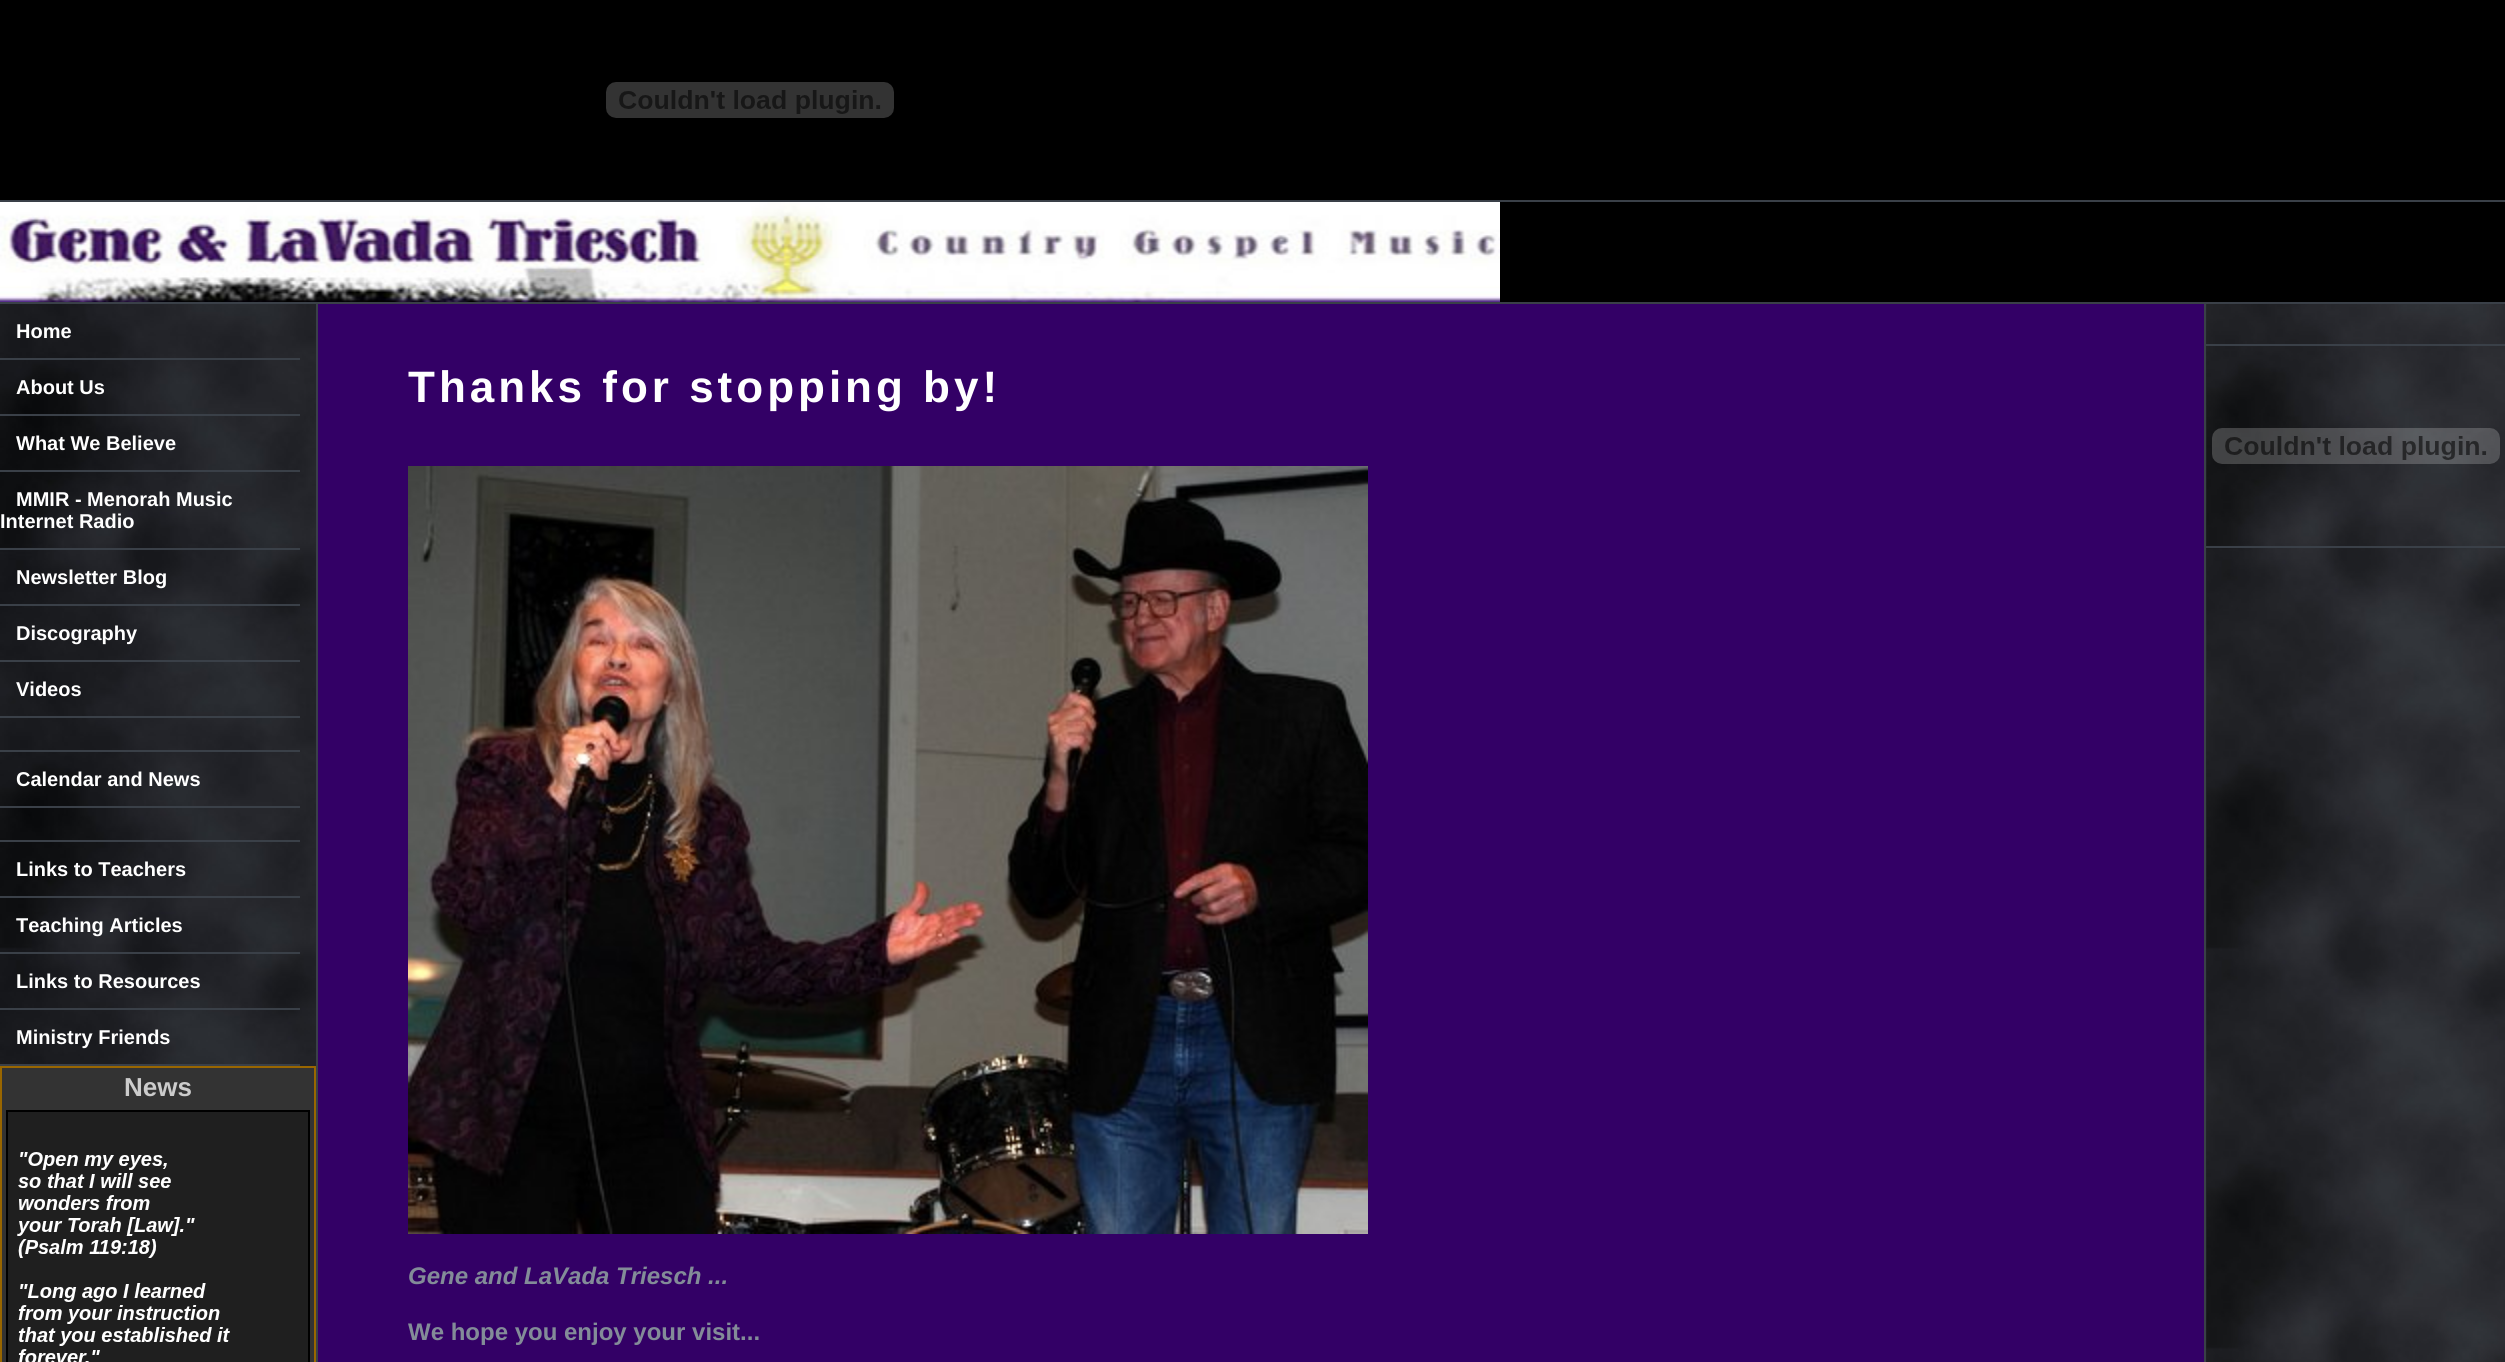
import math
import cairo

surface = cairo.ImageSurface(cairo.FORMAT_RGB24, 2505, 1362)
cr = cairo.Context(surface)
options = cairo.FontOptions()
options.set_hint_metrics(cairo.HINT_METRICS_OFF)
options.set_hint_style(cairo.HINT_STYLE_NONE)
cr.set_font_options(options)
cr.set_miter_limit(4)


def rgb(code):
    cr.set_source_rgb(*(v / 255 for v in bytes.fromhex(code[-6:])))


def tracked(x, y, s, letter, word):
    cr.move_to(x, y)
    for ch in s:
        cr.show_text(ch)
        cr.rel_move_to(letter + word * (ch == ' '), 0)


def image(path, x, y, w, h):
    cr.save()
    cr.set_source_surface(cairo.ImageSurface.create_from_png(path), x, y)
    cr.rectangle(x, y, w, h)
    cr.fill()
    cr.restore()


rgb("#330066")
cr.paint()
rgb("#000000")
cr.rectangle(0, 0, 2505, 200)
cr.fill()
rgb("#3a4048")
cr.rectangle(0, 200, 2505, 2)
cr.fill()
image("img/1.png", 606, 82, 288, 36)
rgb("#000000")
cr.rectangle(1500, 202, 1005, 100)
cr.fill()
rgb("#3a4048")
cr.rectangle(0, 302, 2505, 2)
cr.fill()
image("img/2.png", 0, 202, 1500, 100)
image("img/3.png", 0, 304, 316, 762)
for x, y, w, h, color in [
    (316, 304, 2, 1058, "#3a4048"),
    (0, 358, 300, 2, "#3a4048"),
    (0, 414, 300, 2, "#3a4048"),
    (0, 470, 300, 2, "#3a4048"),
    (0, 548, 300, 2, "#3a4048"),
    (0, 604, 300, 2, "#3a4048"),
    (0, 660, 300, 2, "#3a4048"),
    (0, 716, 300, 2, "#3a4048"),
    (0, 750, 300, 2, "#3a4048"),
    (0, 806, 300, 2, "#3a4048"),
    (0, 840, 300, 2, "#3a4048"),
    (0, 896, 300, 2, "#3a4048"),
    (0, 952, 300, 2, "#3a4048"),
    (0, 1008, 300, 2, "#3a4048"),
    (0, 1064, 300, 2, "#3a4048"),
]:
    rgb(color)
    cr.rectangle(x, y, w, h)
    cr.fill()
rgb("#333333")
cr.rectangle(1, 1067, 314, 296)
cr.fill_preserve()
rgb("#996600")
cr.stroke()
cr.rectangle(7, 1111, 302, 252)
rgb("#000000")
cr.stroke()
image("img/4.png", 8, 1112, 300, 250)
image("img/5.png", 408, 466, 960, 768)
image("img/6.png", 2206, 304, 299, 1058)
for x, y, w, h, color in [
    (2204, 304, 2, 1058, "#3a4048"),
    (2206, 344, 299, 2, "#3a4048"),
    (2206, 546, 299, 2, "#3a4048"),
]:
    rgb(color)
    cr.rectangle(x, y, w, h)
    cr.fill()
image("img/7.png", 2212, 428, 288, 36)
cr.select_font_face("Liberation Sans", cairo.FONT_SLANT_NORMAL, cairo.FONT_WEIGHT_BOLD)
cr.set_font_size(20)
rgb("#ffffff")
for x, y, s in [
    (16, 338, "Home"),
    (16, 394, "About Us"),
    (16, 450, "What We Believe"),
    (16, 506, "MMIR - Menorah Music"),
    (0, 528, "Internet Radio"),
    (16, 584, "Newsletter Blog"),
    (16, 640, "Discography"),
    (16, 696, "Videos"),
    (16, 786, "Calendar and News"),
    (16, 876, "Links to Teachers"),
    (16, 932, "Teaching Articles"),
    (16, 988, "Links to Resources"),
    (16, 1044, "Ministry Friends"),
]:
    cr.move_to(x, y)
    cr.show_text(s)
cr.set_font_size(26)
rgb("#cccccc")
cr.move_to(124, 1096)
cr.show_text("News")
cr.set_font_size(44)
rgb("#ffffff")
tracked(408, 402, "Thanks for stopping by!", 4, 0)
cr.select_font_face("Liberation Sans", cairo.FONT_SLANT_ITALIC, cairo.FONT_WEIGHT_BOLD)
cr.set_font_size(24)
rgb("#838c98")
cr.move_to(408, 1284)
cr.show_text("Gene and LaVada Triesch ...")
cr.select_font_face("Liberation Sans", cairo.FONT_SLANT_NORMAL, cairo.FONT_WEIGHT_BOLD)
cr.move_to(408, 1340)
cr.show_text("We hope you enjoy your visit...")
surface.write_to_png("page.png")
